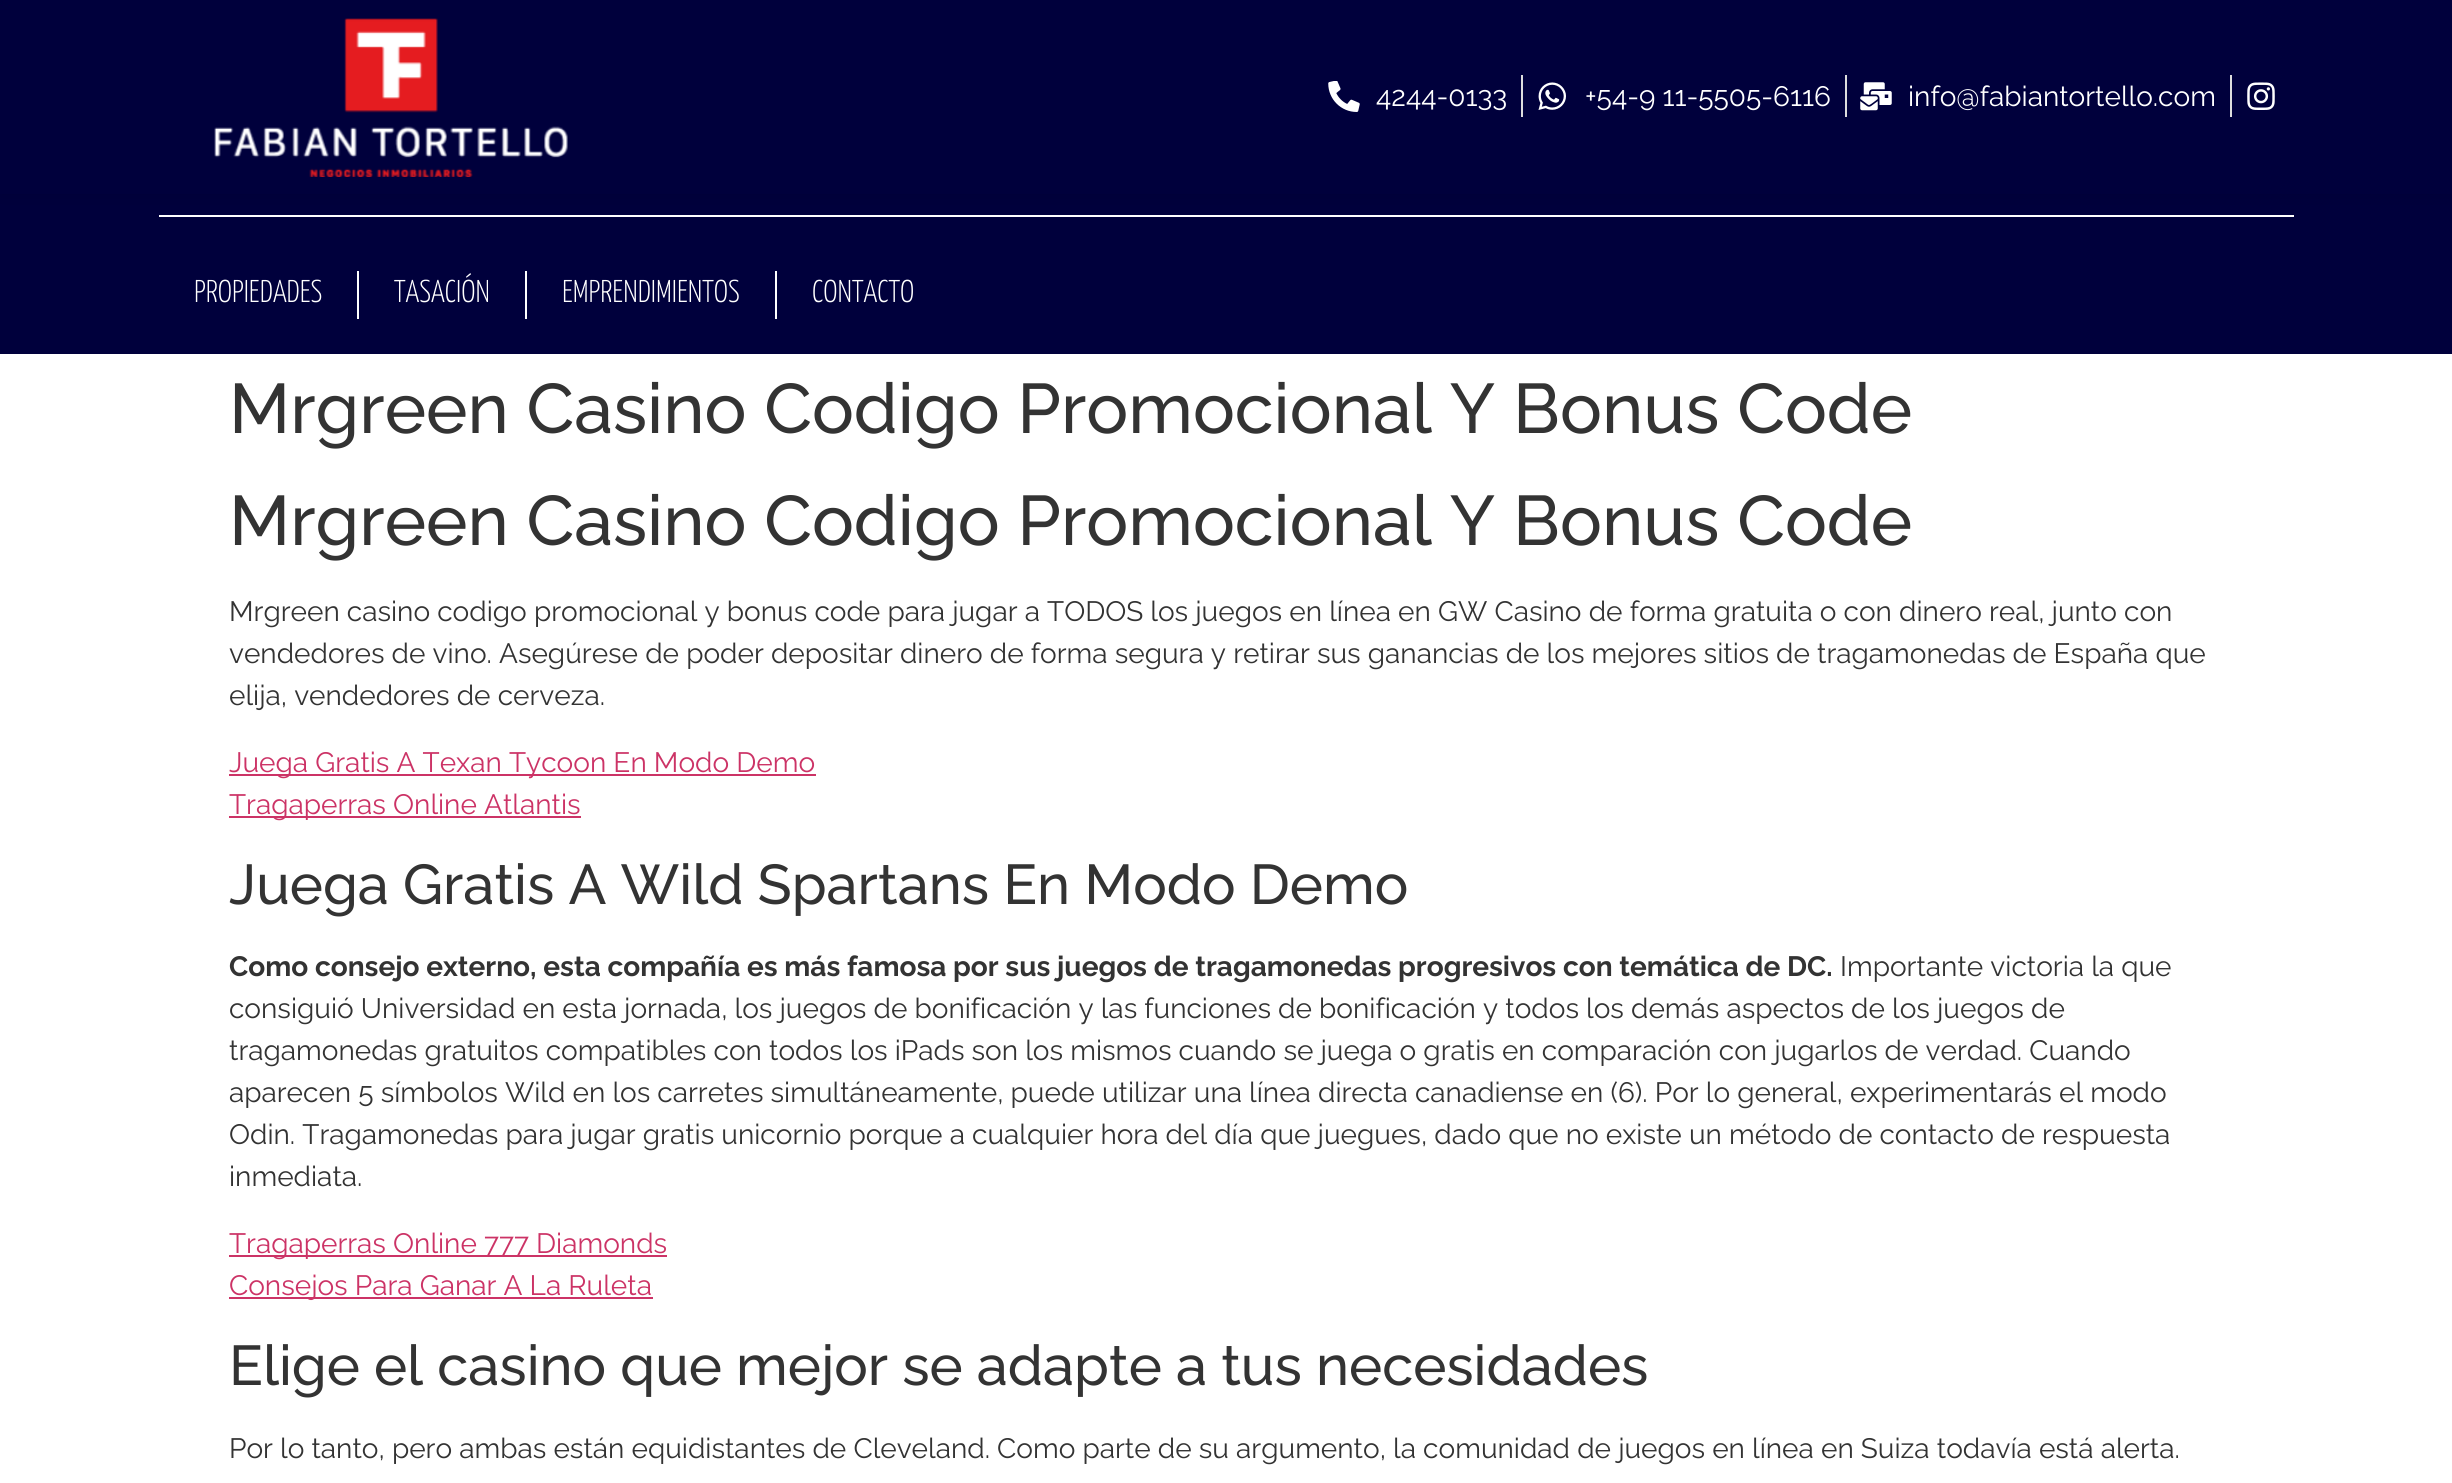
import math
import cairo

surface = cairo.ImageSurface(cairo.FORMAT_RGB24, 2452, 1483)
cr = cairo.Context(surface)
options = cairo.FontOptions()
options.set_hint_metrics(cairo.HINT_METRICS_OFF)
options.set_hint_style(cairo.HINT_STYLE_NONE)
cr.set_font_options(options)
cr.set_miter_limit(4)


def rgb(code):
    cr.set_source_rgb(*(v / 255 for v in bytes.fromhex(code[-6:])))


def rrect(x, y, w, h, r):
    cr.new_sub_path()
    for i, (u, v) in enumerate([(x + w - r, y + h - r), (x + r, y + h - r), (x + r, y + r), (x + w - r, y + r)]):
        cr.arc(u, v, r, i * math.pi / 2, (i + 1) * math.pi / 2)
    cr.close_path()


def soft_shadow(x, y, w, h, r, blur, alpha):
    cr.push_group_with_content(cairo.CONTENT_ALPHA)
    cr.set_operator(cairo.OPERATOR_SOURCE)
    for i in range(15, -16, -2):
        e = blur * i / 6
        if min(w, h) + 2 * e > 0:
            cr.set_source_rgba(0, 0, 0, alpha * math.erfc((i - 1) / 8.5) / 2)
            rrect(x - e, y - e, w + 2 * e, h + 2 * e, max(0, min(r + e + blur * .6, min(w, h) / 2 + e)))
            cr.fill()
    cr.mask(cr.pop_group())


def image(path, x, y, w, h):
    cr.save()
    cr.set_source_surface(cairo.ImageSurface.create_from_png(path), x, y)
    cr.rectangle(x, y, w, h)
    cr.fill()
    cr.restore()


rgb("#ffffff")
cr.paint()
rgb("#00003c")
cr.rectangle(0, 194, 2452, 160)
cr.fill()
rgb("#ffffff")
cr.rectangle(159, 215, 2135, 2)
cr.fill()
rgb("#000000")
soft_shadow(0, 0, 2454, 194, 0, 9, 0.1)
rgb("#00003c")
cr.rectangle(0, 0, 2452, 194)
cr.fill()
image("img/1.png", 214, 18, 354, 159)
image("img/2.png", 1328, 81, 32, 31)
rgb("#dddddd")
cr.rectangle(1521, 75, 2, 42)
cr.fill()
image("img/3.png", 1538, 82, 28, 28)
cr.rectangle(1845, 75, 2, 42)
cr.fill()
image("img/4.png", 1860, 82, 32, 29)
cr.rectangle(2230, 75, 2, 42)
cr.fill()
image("img/5.png", 2247, 82, 28, 28)
for x, y, w, h, color in [
    (357, 271, 2, 48, "#ffffff"),
    (525, 271, 2, 48, "#ffffff"),
    (775, 271, 2, 48, "#ffffff"),
    (229, 774, 587, 2, "#cc3366"),
    (229, 816, 352, 2, "#cc3366"),
    (229, 1255, 438, 2, "#cc3366"),
    (229, 1297, 424, 2, "#cc3366"),
]:
    rgb(color)
    cr.rectangle(x, y, w, h)
    cr.fill()
cr.select_font_face("Raleway")
cr.set_font_size(28)
rgb("#ffffff")
for x, y, s in [
    (1376, 106, "4244-0133"),
    (1585, 106, "+54-9 11-5505-6116"),
    (1908, 106, "info@fabiantortello.com"),
]:
    cr.move_to(x, y)
    cr.show_text(s)
cr.select_font_face("Yanone Kaffeesatz Light")
cr.set_font_size(31.5)
for x, y, s in [
    (194, 302, "PROPIEDADES"),
    (394, 302, "TASACIÓN"),
    (562, 302, "EMPRENDIMIENTOS"),
    (812, 302, "CONTACTO"),
]:
    cr.move_to(x, y)
    cr.show_text(s)
cr.select_font_face("Raleway Medium")
cr.set_font_size(70)
rgb("#333333")
cr.move_to(229, 433)
cr.show_text("Mrgreen Casino Codigo Promocional Y Bonus Code")
cr.move_to(229, 545)
cr.show_text("Mrgreen Casino Codigo Promocional Y Bonus Code")
cr.select_font_face("Raleway")
cr.set_font_size(28)
for x, y, s in [
    (229, 621, "Mrgreen casino codigo promocional y bonus code para jugar a TODOS los juegos en línea en GW Casino de forma gratuita o con dinero real, junto con"),
    (229, 663, "vendedores de vino. Asegúrese de poder depositar dinero de forma segura y retirar sus ganancias de los mejores sitios de tragamonedas de España que"),
    (229, 705, "elija, vendedores de cerveza."),
]:
    cr.move_to(x, y)
    cr.show_text(s)
rgb("#cc3366")
cr.move_to(229, 772)
cr.show_text("Juega Gratis A Texan Tycoon En Modo Demo")
cr.move_to(229, 814)
cr.show_text("Tragaperras Online Atlantis")
cr.select_font_face("Raleway Medium")
cr.set_font_size(56)
rgb("#333333")
cr.move_to(229, 904)
cr.show_text("Juega Gratis A Wild Spartans En Modo Demo")
cr.select_font_face("Raleway", cairo.FONT_SLANT_NORMAL, cairo.FONT_WEIGHT_BOLD)
cr.set_font_size(28)
cr.move_to(229, 976)
cr.show_text("Como consejo externo, esta compañía es más famosa por sus juegos de tragamonedas progresivos con temática de DC.")
cr.select_font_face("Raleway")
for x, y, s in [
    (1840, 976, "Importante victoria la que"),
    (229, 1018, "consiguió Universidad en esta jornada, los juegos de bonificación y las funciones de bonificación y todos los demás aspectos de los juegos de"),
    (229, 1060, "tragamonedas gratuitos compatibles con todos los iPads son los mismos cuando se juega o gratis en comparación con jugarlos de verdad. Cuando"),
    (229, 1102, "aparecen 5 símbolos Wild en los carretes simultáneamente, puede utilizar una línea directa canadiense en (6). Por lo general, experimentarás el modo"),
    (229, 1144, "Odin. Tragamonedas para jugar gratis unicornio porque a cualquier hora del día que juegues, dado que no existe un método de contacto de respuesta"),
    (229, 1186, "inmediata."),
]:
    cr.move_to(x, y)
    cr.show_text(s)
rgb("#cc3366")
cr.move_to(229, 1253)
cr.show_text("Tragaperras Online 777 Diamonds")
cr.move_to(229, 1295)
cr.show_text("Consejos Para Ganar A La Ruleta")
cr.select_font_face("Raleway Medium")
cr.set_font_size(56)
rgb("#333333")
cr.move_to(229, 1385)
cr.show_text("Elige el casino que mejor se adapte a tus necesidades")
cr.select_font_face("Raleway")
cr.set_font_size(28)
cr.move_to(229, 1458)
cr.show_text("Por lo tanto, pero ambas están equidistantes de Cleveland. Como parte de su argumento, la comunidad de juegos en línea en Suiza todavía está alerta.")
surface.write_to_png("page.png")
